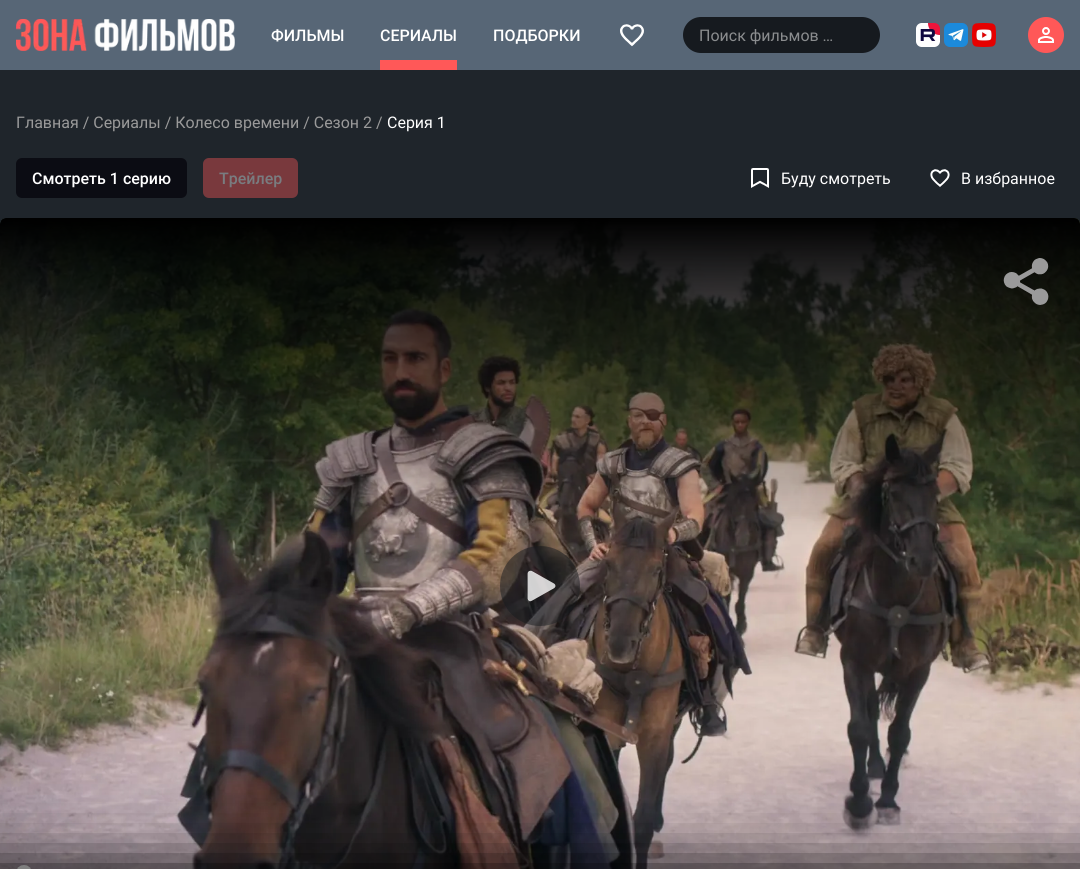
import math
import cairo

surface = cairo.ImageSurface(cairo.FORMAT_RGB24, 1080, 869)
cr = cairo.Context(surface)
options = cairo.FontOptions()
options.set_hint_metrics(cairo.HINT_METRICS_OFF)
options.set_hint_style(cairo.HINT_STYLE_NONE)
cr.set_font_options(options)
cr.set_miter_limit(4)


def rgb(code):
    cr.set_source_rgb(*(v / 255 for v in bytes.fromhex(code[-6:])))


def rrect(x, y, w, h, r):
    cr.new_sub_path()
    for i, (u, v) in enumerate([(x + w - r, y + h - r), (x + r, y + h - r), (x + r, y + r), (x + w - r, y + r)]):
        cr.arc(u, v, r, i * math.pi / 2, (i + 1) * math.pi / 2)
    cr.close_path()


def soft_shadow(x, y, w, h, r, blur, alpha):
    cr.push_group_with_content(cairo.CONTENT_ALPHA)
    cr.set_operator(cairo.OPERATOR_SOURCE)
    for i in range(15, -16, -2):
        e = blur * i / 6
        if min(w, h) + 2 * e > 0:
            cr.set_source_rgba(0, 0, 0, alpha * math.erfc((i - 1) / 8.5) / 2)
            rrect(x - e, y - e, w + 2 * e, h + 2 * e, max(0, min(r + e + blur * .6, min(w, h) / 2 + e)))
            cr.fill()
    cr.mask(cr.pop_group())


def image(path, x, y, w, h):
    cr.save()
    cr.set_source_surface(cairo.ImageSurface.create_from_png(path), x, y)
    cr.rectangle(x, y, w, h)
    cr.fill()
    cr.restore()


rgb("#576676")
cr.paint()
image("img/1.png", 16, 19, 219, 32)
rgb("#ff5858")
cr.rectangle(380, 60, 77, 10)
cr.fill()
image("img/2.png", 620, 24, 24, 23)
rgb("#161a1f")
rrect(683, 17, 197, 36, 18)
cr.fill()
image("img/3.png", 916, 23, 24, 24)
image("img/4.png", 944, 23, 24, 24)
image("img/5.png", 972, 23, 24, 24)
rgb("#ff5858")
cr.arc(1046, 35, 18, 0, 2 * math.pi)
cr.fill()
image("img/6.png", 1038, 27, 16, 16)
rgb("#1f252b")
cr.rectangle(0, 70, 1080, 154)
cr.fill()
rgb("#0b0c13")
rrect(16, 158, 171, 40, 6)
cr.fill()
rgb("#79393d")
rrect(203, 158, 95, 40, 6)
cr.fill()
image("img/7.png", 751, 168, 18, 20)
image("img/8.png", 930, 169, 20, 18)
image("img/9.png", 0, 218, 1080, 651)
gradient = cairo.LinearGradient(540, 218, 540, 853)
gradient.add_color_stop_rgba(0, 0, 0, 0, 1)
gradient.add_color_stop_rgba(0.5, 0, 0, 0, 0)
cr.set_source(gradient)
cr.new_path()
cr.move_to(6, 218)
cr.line_to(1074, 218)
cr.curve_to(1077.5, 218, 1080, 220.5, 1080, 224)
cr.line_to(1080, 853)
cr.line_to(0, 853)
cr.line_to(0, 224)
cr.curve_to(0, 220.5, 2.5, 218, 6, 218)
cr.close_path()
cr.fill()
image("img/10.png", 1003, 258, 46, 47)
cr.set_source_rgba(0.086, 0.102, 0.122, 0.5)
cr.arc(540, 586, 40, 0, 2 * math.pi)
cr.fill()
image("img/11.png", 527, 570, 29, 32)
rgb("#000000")
soft_shadow(-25, 868, 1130, 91, 0, 30, 1)
cr.select_font_face("Roboto Medium")
cr.set_font_size(16)
rgb("#ffffff")
for x, y, s in [
    (271, 41, "ФИЛЬМЫ"),
    (380, 41, "СЕРИАЛЫ"),
    (493, 41, "ПОДБОРКИ"),
]:
    cr.move_to(x, y)
    cr.show_text(s)
cr.select_font_face("Roboto")
rgb("#8b8d8f")
cr.move_to(699, 41)
cr.show_text("Поиск фильмов …")
rgb("#9a9a9a")
cr.move_to(16, 128)
cr.show_text("Главная / Сериалы / Колесо времени / Сезон 2 /")
rgb("#ffffff")
cr.move_to(387, 128)
cr.show_text("Серия 1")
cr.select_font_face("Roboto Medium")
cr.move_to(32, 184)
cr.show_text("Смотреть 1 серию")
rgb("#797c80")
cr.move_to(219, 184)
cr.show_text("Трейлер")
cr.select_font_face("Roboto")
rgb("#ffffff")
cr.move_to(781, 184)
cr.show_text("Буду смотреть")
cr.move_to(961, 184)
cr.show_text("В избранное")
surface.write_to_png("page.png")
